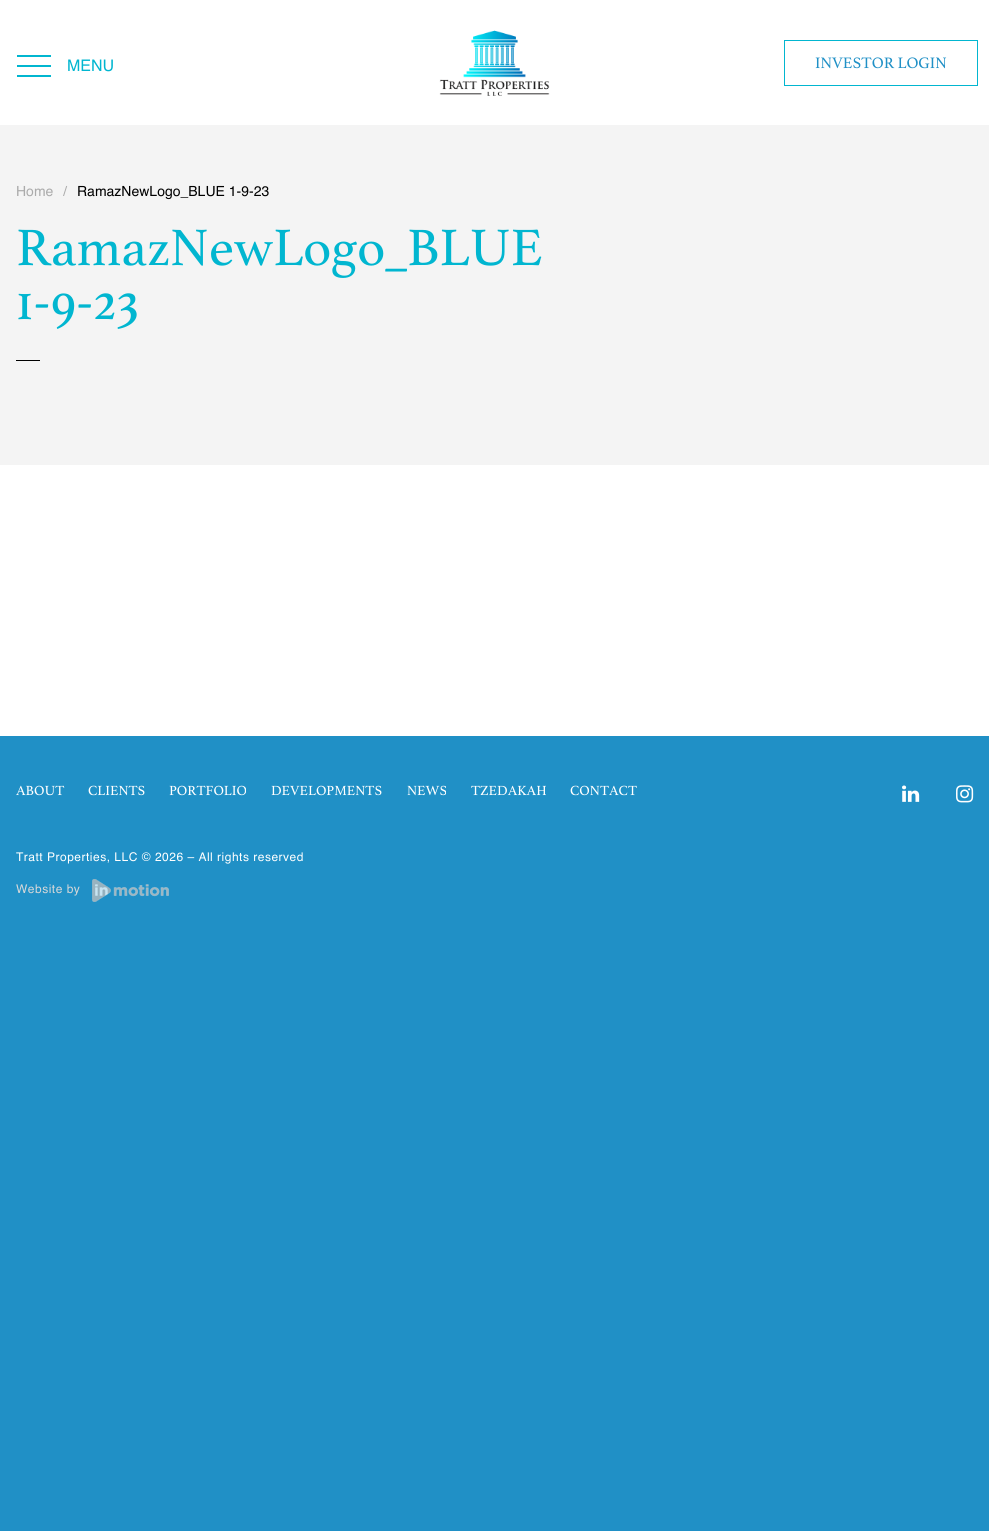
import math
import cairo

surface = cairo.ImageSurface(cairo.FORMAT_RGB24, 989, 1531)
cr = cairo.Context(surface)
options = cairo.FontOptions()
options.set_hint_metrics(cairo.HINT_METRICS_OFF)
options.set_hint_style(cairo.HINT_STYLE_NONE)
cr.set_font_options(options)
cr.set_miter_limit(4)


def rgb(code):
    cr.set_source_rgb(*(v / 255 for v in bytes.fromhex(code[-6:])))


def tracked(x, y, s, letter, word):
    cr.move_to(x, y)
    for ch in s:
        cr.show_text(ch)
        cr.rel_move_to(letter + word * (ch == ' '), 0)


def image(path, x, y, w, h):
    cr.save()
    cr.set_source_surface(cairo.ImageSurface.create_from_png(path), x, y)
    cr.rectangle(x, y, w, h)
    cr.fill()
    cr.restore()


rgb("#2090c6")
cr.paint()
for x, y, w, h, color in [
    (0, 0, 989, 125, "#ffffff"),
    (17, 65, 34, 2, "#01b6d0"),
    (17, 55, 34, 2, "#01b6d0"),
    (17, 75, 34, 2, "#01b6d0"),
]:
    rgb(color)
    cr.rectangle(x, y, w, h)
    cr.fill()
image("img/1.png", 439, 30, 111, 66)
cr.rectangle(784.5, 40.5, 193, 45)
rgb("#02b6d0")
cr.set_line_width(1)
cr.stroke()
for x, y, w, h, color in [
    (0, 125, 989, 340, "#f4f4f4"),
    (16, 360, 24, 1, "#000000"),
    (0, 465, 989, 271, "#ffffff"),
]:
    rgb(color)
    cr.rectangle(x, y, w, h)
    cr.fill()
image("img/2.png", 902, 785, 18, 17)
image("img/3.png", 956, 785, 18, 18)
image("img/4.png", 92, 879, 77, 23)
cr.select_font_face("Helvetica")
cr.set_font_size(16)
rgb("#01b6d0")
cr.move_to(67, 71)
cr.show_text("MENU")
cr.select_font_face("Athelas")
rgb("#2090c6")
cr.move_to(815, 68)
cr.show_text("INVESTOR LOGIN")
cr.select_font_face("Helvetica")
cr.set_font_size(14)
rgb("#ababab")
cr.move_to(16, 196)
cr.show_text("Home")
cr.move_to(63, 196)
cr.show_text("/")
rgb("#000000")
cr.move_to(77, 196)
cr.show_text("RamazNewLogo_BLUE 1-9-23")
cr.select_font_face("Athelas")
cr.set_font_size(54)
rgb("#01b6d0")
cr.move_to(16, 265)
cr.show_text("RamazNewLogo_BLUE")
cr.move_to(16, 319)
cr.show_text("1-9-23")
cr.set_font_size(14)
rgb("#ffffff")
for x, y, s in [
    (16, 795, "ABOUT"),
    (88, 795, "CLIENTS"),
    (169, 795, "PORTFOLIO"),
    (271, 795, "DEVELOPMENTS"),
    (407, 795, "NEWS"),
    (471, 795, "TZEDAKAH"),
    (570, 795, "CONTACT"),
]:
    cr.move_to(x, y)
    cr.show_text(s)
cr.select_font_face("Helvetica")
cr.set_font_size(12)
tracked(16, 861, "Tratt Properties, LLC © 2026 – All rights reserved", 0.5, 0)
rgb("#d8d8d8")
tracked(16, 893, "Website by", 0.5, 0)
surface.write_to_png("page.png")
